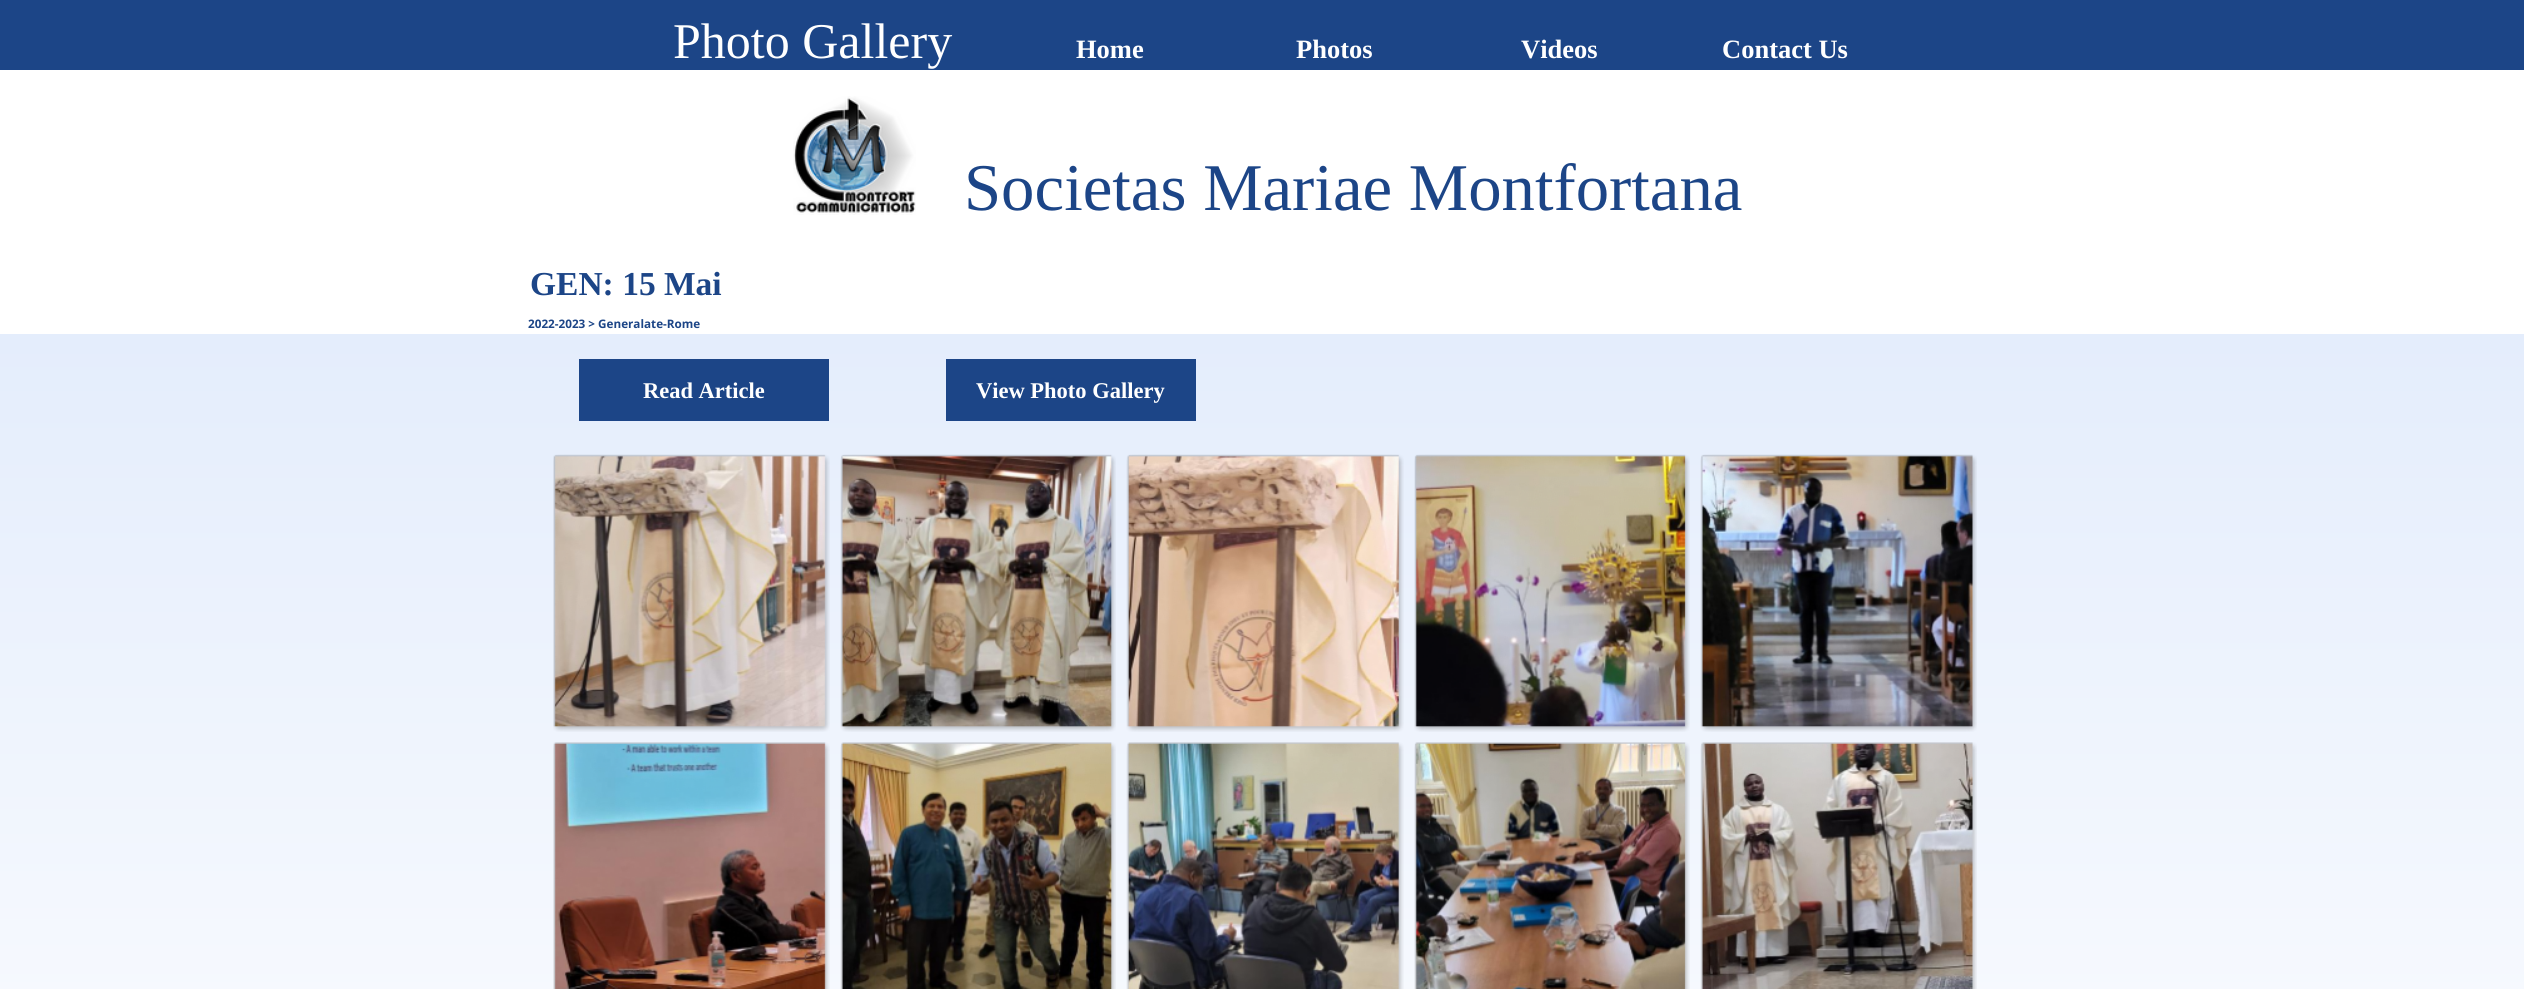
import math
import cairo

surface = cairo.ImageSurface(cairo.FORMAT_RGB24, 2524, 989)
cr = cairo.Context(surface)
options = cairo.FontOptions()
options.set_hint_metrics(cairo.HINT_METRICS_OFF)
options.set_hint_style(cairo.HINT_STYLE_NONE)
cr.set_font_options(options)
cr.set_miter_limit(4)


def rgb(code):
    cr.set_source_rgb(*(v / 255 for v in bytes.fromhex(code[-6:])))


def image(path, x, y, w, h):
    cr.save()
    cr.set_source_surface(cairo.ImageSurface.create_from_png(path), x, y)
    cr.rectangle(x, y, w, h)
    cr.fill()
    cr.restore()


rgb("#ffffff")
cr.paint()
rgb("#1c4587")
cr.rectangle(0, 0, 2524, 70)
cr.fill()
image("img/1.png", 793, 96, 123, 119)
gradient = cairo.LinearGradient(1263, 334, 1263, 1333)
gradient.add_color_stop_rgba(0, 0.894, 0.929, 0.988, 1)
gradient.add_color_stop_rgba(1, 1, 1, 1, 1)
cr.set_source(gradient)
cr.rectangle(0, 334, 2524, 655)
cr.fill()
rgb("#1c4587")
cr.rectangle(579, 359, 250, 62)
cr.fill()
cr.rectangle(946, 359, 250, 62)
cr.fill()
image("img/2.png", 553, 454, 277, 278)
image("img/3.png", 840, 454, 276, 278)
image("img/4.png", 1126, 454, 278, 278)
image("img/5.png", 1414, 454, 276, 278)
image("img/6.png", 1700, 454, 277, 278)
image("img/7.png", 553, 742, 277, 247)
image("img/8.png", 840, 742, 276, 247)
image("img/9.png", 1126, 742, 278, 247)
image("img/10.png", 1414, 742, 276, 247)
image("img/11.png", 1700, 742, 277, 247)
cr.select_font_face("Liberation Serif")
cr.set_font_size(50)
rgb("#ffffff")
cr.move_to(673, 58)
cr.show_text("Photo Gallery")
cr.select_font_face("Liberation Serif", cairo.FONT_SLANT_NORMAL, cairo.FONT_WEIGHT_BOLD)
cr.set_font_size(26.5)
for x, y, s in [
    (1076, 58, "Home"),
    (1296, 58, "Photos"),
    (1521, 58, "Videos"),
    (1722, 58, "Contact Us"),
]:
    cr.move_to(x, y)
    cr.show_text(s)
cr.select_font_face("Liberation Serif")
cr.set_font_size(66.75)
rgb("#1c4587")
cr.move_to(964, 210)
cr.show_text("Societas Mariae Montfortana")
cr.select_font_face("Liberation Serif", cairo.FONT_SLANT_NORMAL, cairo.FONT_WEIGHT_BOLD)
cr.set_font_size(33.5)
cr.move_to(530, 295)
cr.show_text("GEN: 15 Mai")
cr.select_font_face("Open Sans", cairo.FONT_SLANT_NORMAL, cairo.FONT_WEIGHT_BOLD)
cr.set_font_size(11.7)
cr.move_to(528, 328)
cr.show_text("2022-2023 > Generalate-Rome")
cr.select_font_face("Liberation Serif", cairo.FONT_SLANT_NORMAL, cairo.FONT_WEIGHT_BOLD)
cr.set_font_size(22.5)
rgb("#ffffff")
cr.move_to(643, 398)
cr.show_text("Read Article")
cr.move_to(976, 398)
cr.show_text("View Photo Gallery")
surface.write_to_png("page.png")
